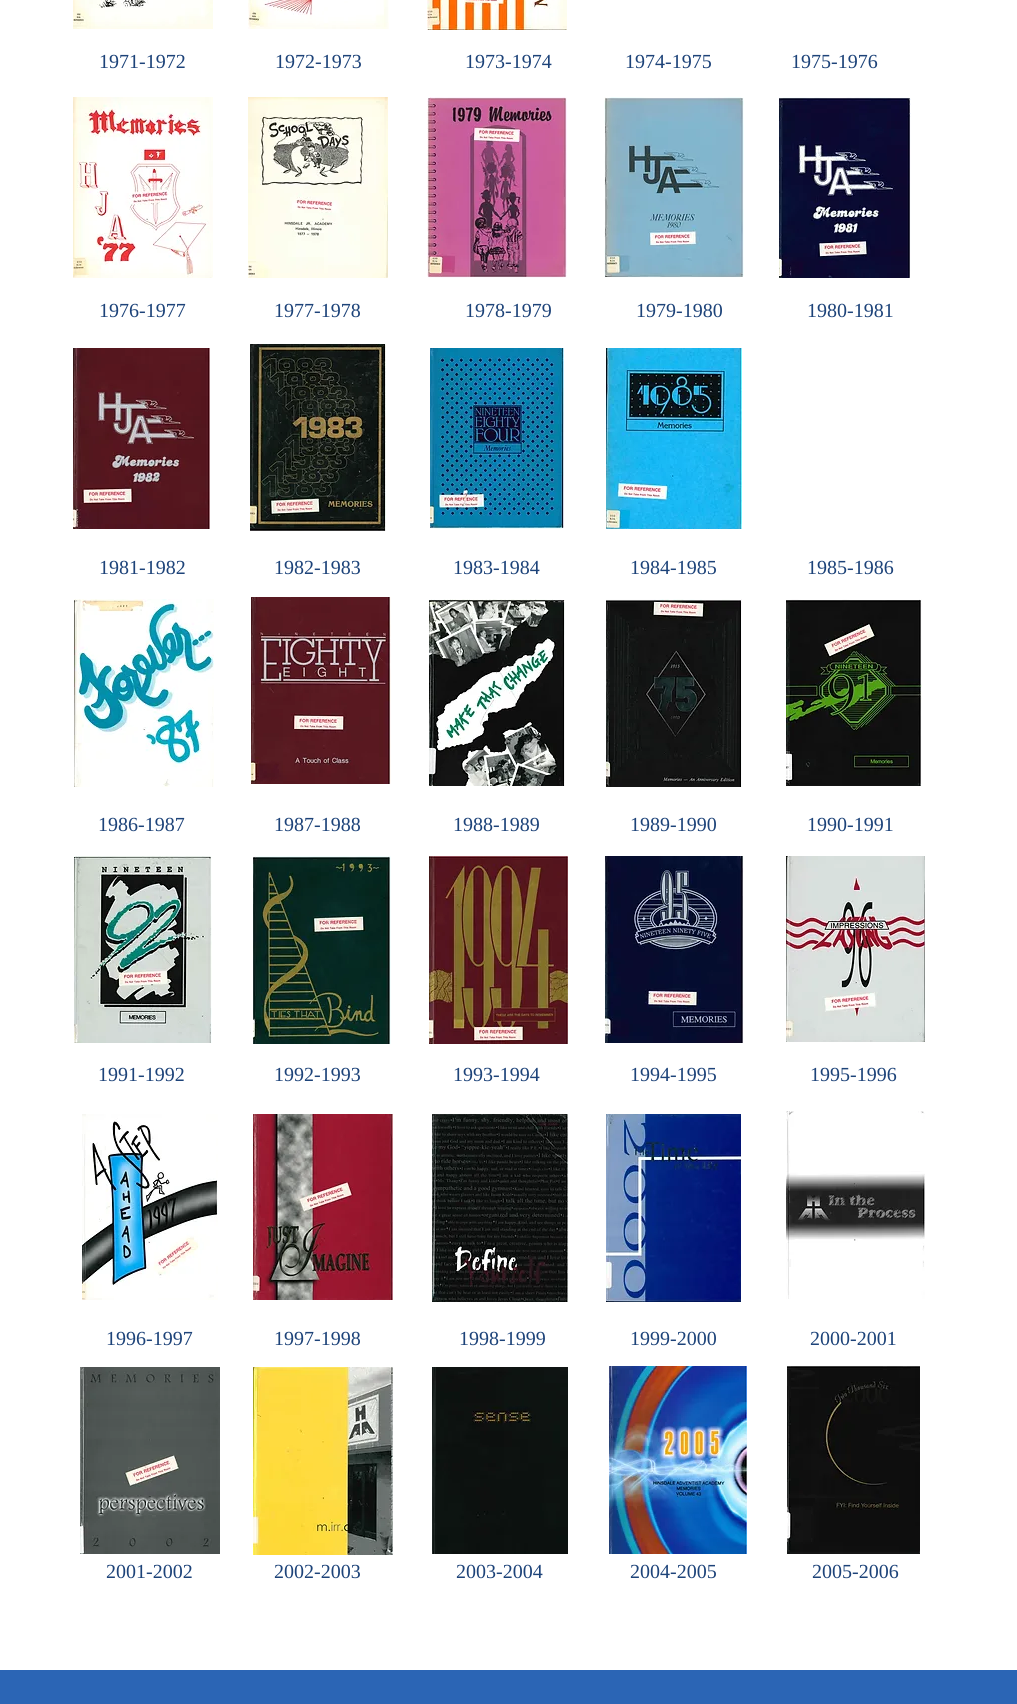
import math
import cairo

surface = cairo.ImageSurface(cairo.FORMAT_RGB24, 1017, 1704)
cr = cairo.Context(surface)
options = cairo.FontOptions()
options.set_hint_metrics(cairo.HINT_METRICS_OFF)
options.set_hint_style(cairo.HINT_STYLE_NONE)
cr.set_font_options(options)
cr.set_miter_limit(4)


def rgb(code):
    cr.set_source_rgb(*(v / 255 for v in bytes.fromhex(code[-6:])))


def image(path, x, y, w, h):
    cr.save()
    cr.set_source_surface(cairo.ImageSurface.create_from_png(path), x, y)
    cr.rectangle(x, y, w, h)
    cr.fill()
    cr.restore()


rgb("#ffffff")
cr.paint()
image("img/1.png", 73, 0, 140, 29)
image("img/2.png", 248, 0, 141, 29)
image("img/3.png", 427, 0, 140, 30)
image("img/4.png", 73, 97, 140, 181)
image("img/5.png", 248, 97, 140, 181)
image("img/6.png", 427, 97, 140, 181)
image("img/7.png", 604, 97, 140, 181)
image("img/8.png", 779, 97, 132, 181)
image("img/9.png", 73, 348, 137, 181)
image("img/10.png", 250, 344, 136, 187)
image("img/11.png", 430, 348, 134, 181)
image("img/12.png", 606, 348, 136, 181)
image("img/13.png", 74, 599, 140, 188)
image("img/14.png", 251, 597, 140, 187)
image("img/15.png", 429, 599, 136, 187)
image("img/16.png", 606, 599, 136, 188)
image("img/17.png", 786, 599, 136, 187)
image("img/18.png", 74, 856, 138, 187)
image("img/19.png", 253, 856, 138, 188)
image("img/20.png", 429, 856, 139, 188)
image("img/21.png", 605, 856, 139, 187)
image("img/22.png", 786, 856, 139, 186)
image("img/23.png", 82, 1114, 136, 186)
image("img/24.png", 253, 1114, 140, 186)
image("img/25.png", 432, 1114, 136, 188)
image("img/26.png", 606, 1114, 135, 188)
image("img/27.png", 786, 1111, 139, 188)
image("img/28.png", 80, 1367, 140, 187)
image("img/29.png", 253, 1367, 140, 188)
image("img/30.png", 432, 1367, 136, 187)
image("img/31.png", 609, 1366, 138, 188)
image("img/32.png", 787, 1366, 133, 188)
rgb("#2b65b5")
cr.rectangle(0, 1670, 1017, 34)
cr.fill()
cr.select_font_face("Liberation Serif")
cr.set_font_size(20)
rgb("#1d4379")
for x, y, s in [
    (99, 68, "1971-1972"),
    (275, 68, "1972-1973"),
    (465, 68, "1973-1974"),
    (625, 68, "1974-1975"),
    (791, 68, "1975-1976"),
    (99, 317, "1976-1977"),
    (274, 317, "1977-1978"),
    (465, 317, "1978-1979"),
    (636, 317, "1979-1980"),
    (807, 317, "1980-1981"),
    (99, 574, "1981-1982"),
    (274, 574, "1982-1983"),
    (453, 574, "1983-1984"),
    (630, 574, "1984-1985"),
    (807, 574, "1985-1986"),
    (98, 831, "1986-1987"),
    (274, 831, "1987-1988"),
    (453, 831, "1988-1989"),
    (630, 831, "1989-1990"),
    (807, 831, "1990-1991"),
    (98, 1081, "1991-1992"),
    (274, 1081, "1992-1993"),
    (453, 1081, "1993-1994"),
    (630, 1081, "1994-1995"),
    (810, 1081, "1995-1996"),
    (106, 1345, "1996-1997"),
    (274, 1345, "1997-1998"),
    (459, 1345, "1998-1999"),
    (630, 1345, "1999-2000"),
    (810, 1345, "2000-2001"),
    (106, 1578, "2001-2002"),
    (274, 1578, "2002-2003"),
    (456, 1578, "2003-2004"),
    (630, 1578, "2004-2005"),
    (812, 1578, "2005-2006"),
]:
    cr.move_to(x, y)
    cr.show_text(s)
surface.write_to_png("page.png")
